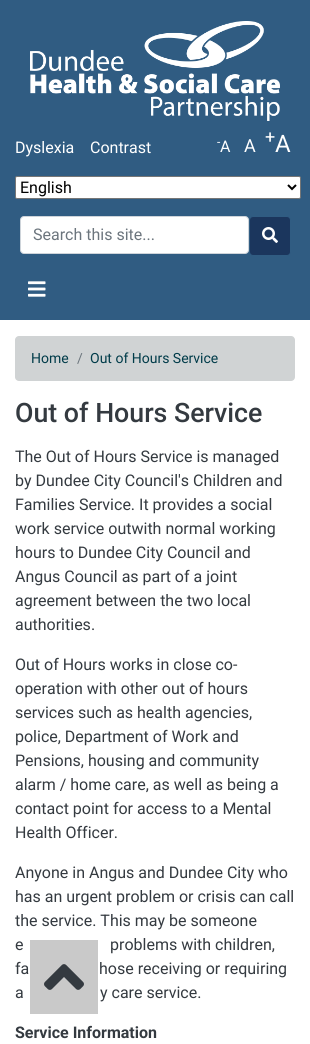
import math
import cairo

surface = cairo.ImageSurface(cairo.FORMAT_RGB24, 310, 1044)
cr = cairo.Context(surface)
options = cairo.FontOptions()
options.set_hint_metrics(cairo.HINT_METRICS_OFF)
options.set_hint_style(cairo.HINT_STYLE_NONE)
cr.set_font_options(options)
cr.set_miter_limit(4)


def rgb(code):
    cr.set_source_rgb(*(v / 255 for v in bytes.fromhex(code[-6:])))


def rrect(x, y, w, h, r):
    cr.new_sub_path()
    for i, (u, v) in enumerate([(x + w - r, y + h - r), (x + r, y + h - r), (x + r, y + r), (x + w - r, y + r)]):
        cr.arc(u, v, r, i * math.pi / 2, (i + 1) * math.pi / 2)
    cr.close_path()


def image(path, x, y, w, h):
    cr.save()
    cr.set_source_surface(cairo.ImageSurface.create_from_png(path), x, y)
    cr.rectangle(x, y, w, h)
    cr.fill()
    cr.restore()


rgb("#ffffff")
cr.paint()
rgb("#305c82")
cr.rectangle(0, 0, 310, 320)
cr.fill()
image("img/1.png", 30, 21, 250, 100)
rgb("#ffffff")
rrect(15.5, 176.5, 285, 22, 1.5)
cr.fill_preserve()
rgb("#767676")
cr.set_line_width(1)
cr.stroke()
cr.new_path()
cr.move_to(288, 185)
cr.line_to(292, 189)
cr.line_to(296, 185)
rgb("#000000")
cr.set_line_width(2)
cr.stroke()
rgb("#ffffff")
rrect(20.5, 216.5, 228, 37, 3.5)
cr.fill_preserve()
rgb("#ced4da")
cr.set_line_width(1)
cr.stroke()
rgb("#1b365d")
rrect(249.5, 216.5, 41, 39, 3.5)
cr.fill_preserve()
rgb("#305c82")
cr.stroke()
image("img/2.png", 262, 227, 16, 16)
image("img/3.png", 28, 281, 18, 16)
rgb("#d0d3d4")
rrect(15, 336, 280, 45, 4)
cr.fill()
cr.set_source_rgba(0.698, 0.698, 0.698, 0.7)
cr.rectangle(30, 940, 68, 74)
cr.fill()
image("img/4.png", 44, 964, 40, 26)
cr.select_font_face("Roboto")
cr.set_font_size(16)
rgb("#ffffff")
cr.move_to(15, 153)
cr.show_text("Dyslexia")
cr.move_to(90, 153)
cr.show_text("Contrast")
cr.set_font_size(12)
cr.move_to(217, 146)
cr.show_text("-")
cr.set_font_size(16)
cr.move_to(220, 152)
cr.show_text("A")
cr.set_font_size(18)
cr.move_to(244, 152)
cr.show_text("A")
cr.move_to(265, 143)
cr.show_text("+")
cr.set_font_size(24)
cr.move_to(275, 152)
cr.show_text("A")
cr.set_font_size(16)
rgb("#000000")
cr.move_to(20, 193)
cr.show_text("English")
rgb("#6c757d")
cr.move_to(33, 240)
cr.show_text("Search this site...")
cr.set_font_size(14)
rgb("#003b49")
cr.move_to(31, 363)
cr.show_text("Home")
rgb("#6c757d")
cr.move_to(77, 363)
cr.show_text("/")
rgb("#003b49")
cr.move_to(90, 363)
cr.show_text("Out of Hours Service")
cr.select_font_face("Roboto Medium")
cr.set_font_size(26.75)
rgb("#343a40")
cr.move_to(15, 422)
cr.show_text("Out of Hours Service")
cr.select_font_face("Roboto")
cr.set_font_size(16)
for x, y, s in [
    (15, 462, "The Out of Hours Service is managed"),
    (15, 486, "by Dundee City Council's Children and"),
    (15, 510, "Families Service. It provides a social"),
    (15, 534, "work service outwith normal working"),
    (15, 558, "hours to Dundee City Council and"),
    (15, 582, "Angus Council as part of a joint"),
    (15, 606, "agreement between the two local"),
    (15, 630, "authorities."),
    (15, 670, "Out of Hours works in close co-"),
    (15, 694, "operation with other out of hours"),
    (15, 718, "services such as health agencies,"),
    (15, 742, "police, Department of Work and"),
    (15, 766, "Pensions, housing and community"),
    (15, 790, "alarm / home care, as well as being a"),
    (15, 814, "contact point for access to a Mental"),
    (15, 838, "Health Officer."),
    (15, 878, "Anyone in Angus and Dundee City who"),
    (15, 902, "has an urgent problem or crisis can call"),
    (15, 926, "the service. This may be someone"),
    (15, 950, "e"),
    (110, 950, "problems with children,"),
    (15, 974, "fa"),
    (99, 974, "hose receiving or requiring"),
    (15, 998, "a"),
    (100, 998, "y care service."),
]:
    cr.move_to(x, y)
    cr.show_text(s)
cr.select_font_face("Roboto", cairo.FONT_SLANT_NORMAL, cairo.FONT_WEIGHT_BOLD)
cr.move_to(15, 1038)
cr.show_text("Service Information")
surface.write_to_png("page.png")
